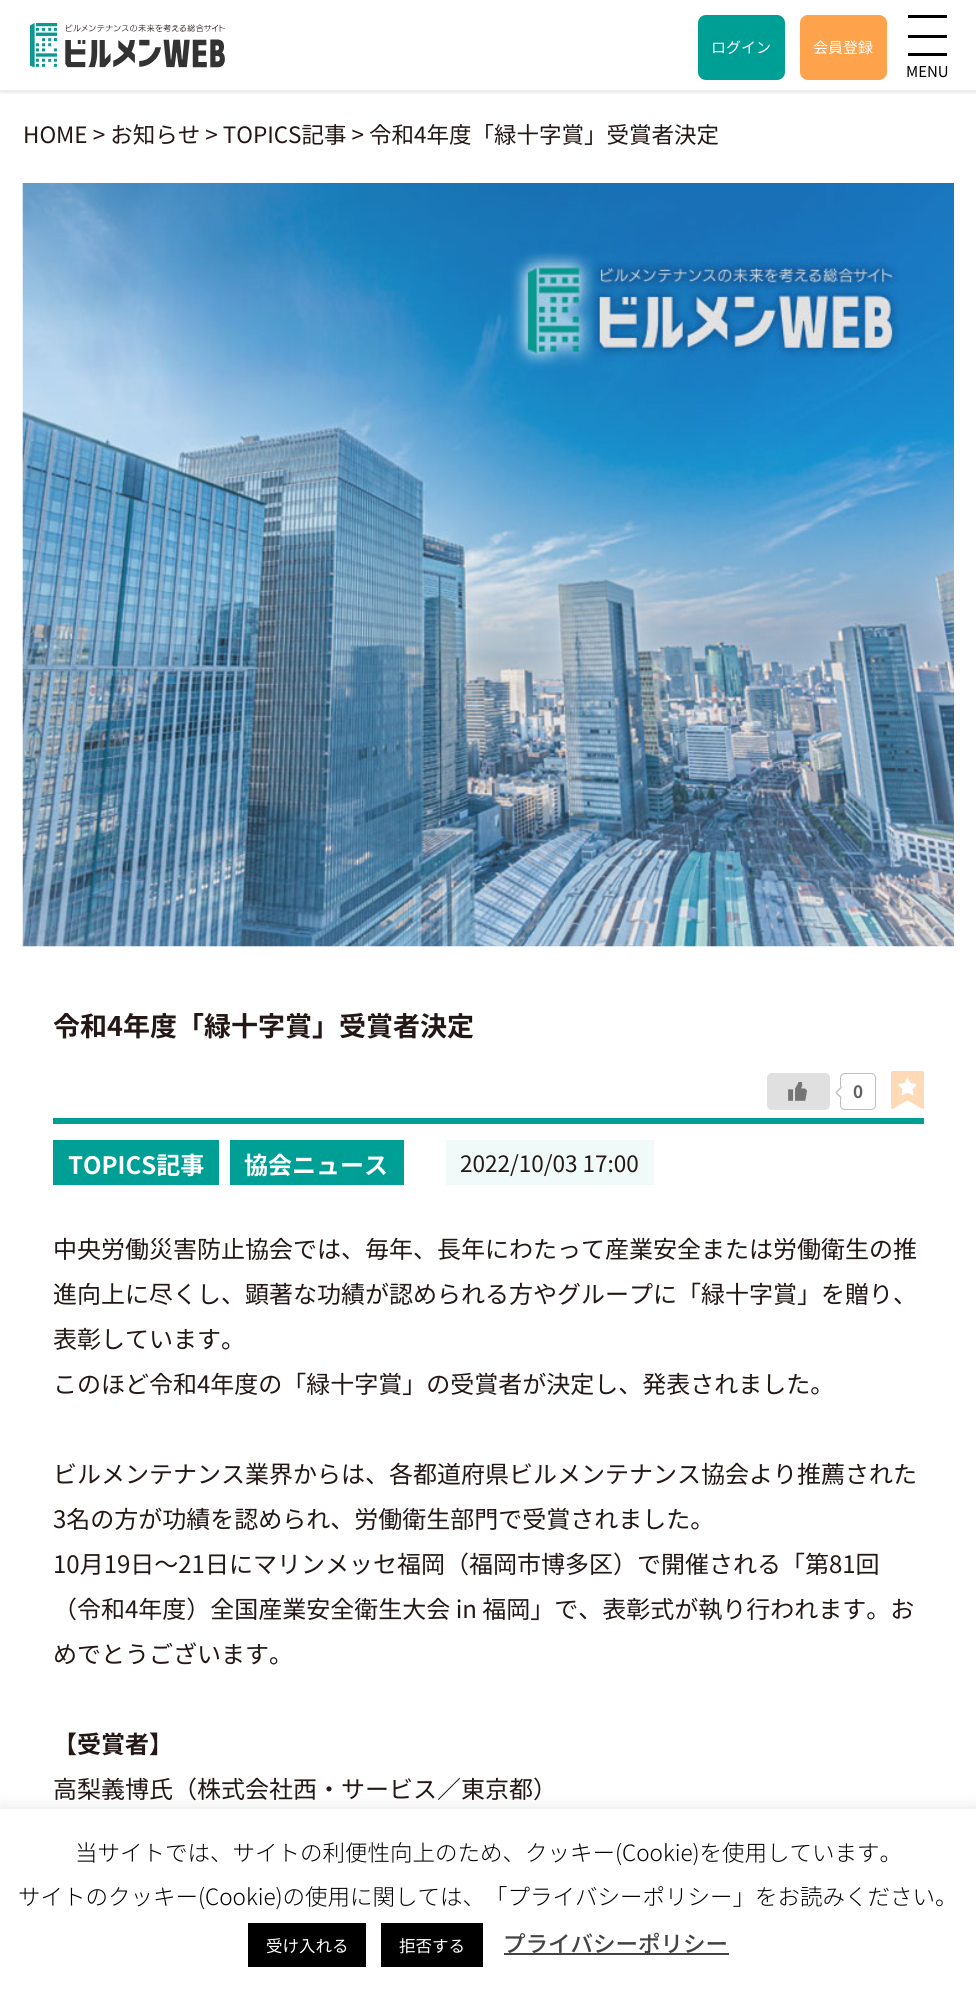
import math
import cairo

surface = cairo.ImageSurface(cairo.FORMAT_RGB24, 976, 1992)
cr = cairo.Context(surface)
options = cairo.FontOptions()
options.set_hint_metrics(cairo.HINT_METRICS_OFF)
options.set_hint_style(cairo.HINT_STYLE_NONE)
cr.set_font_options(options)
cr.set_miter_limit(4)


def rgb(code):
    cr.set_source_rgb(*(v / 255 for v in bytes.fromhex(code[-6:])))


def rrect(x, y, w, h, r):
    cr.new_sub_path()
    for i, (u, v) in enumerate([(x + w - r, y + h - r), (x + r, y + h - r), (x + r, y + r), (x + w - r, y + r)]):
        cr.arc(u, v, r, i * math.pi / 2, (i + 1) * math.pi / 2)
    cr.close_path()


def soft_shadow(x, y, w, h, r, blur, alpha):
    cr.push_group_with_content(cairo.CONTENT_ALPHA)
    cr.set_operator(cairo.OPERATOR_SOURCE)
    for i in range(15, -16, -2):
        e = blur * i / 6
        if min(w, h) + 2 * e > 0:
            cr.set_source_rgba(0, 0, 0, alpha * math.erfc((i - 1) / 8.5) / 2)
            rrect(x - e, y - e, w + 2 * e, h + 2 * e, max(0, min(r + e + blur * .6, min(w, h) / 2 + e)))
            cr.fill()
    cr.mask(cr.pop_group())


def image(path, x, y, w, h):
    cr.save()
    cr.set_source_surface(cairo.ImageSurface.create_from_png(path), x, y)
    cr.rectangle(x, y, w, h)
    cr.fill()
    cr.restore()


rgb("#ffffff")
cr.paint()
cr.save()
cr.rectangle(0, 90, 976, 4)
cr.clip()
rgb("#000000")
soft_shadow(0, 3, 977, 90, 0, 1.5, 0.08)
cr.restore()
image("img/1.png", 30, 23, 195, 45)
rgb("#009f96")
rrect(698, 15, 87, 65, 8)
cr.fill()
rgb("#ffa24c")
rrect(800, 15, 87, 65, 8)
cr.fill()
for x, y, w, h, color in [
    (908, 15, 39, 3, "#000000"),
    (908, 35, 39, 3, "#000000"),
    (908, 53, 39, 3, "#000000"),
]:
    rgb(color)
    cr.rectangle(x, y, w, h)
    cr.fill()
image("img/2.png", 22, 183, 932, 764)
rgb("#009f96")
cr.rectangle(53, 1118, 871, 6)
cr.fill()
rgb("#e0e0e0")
rrect(767, 1073, 63, 37, 5)
cr.fill()
image("img/3.png", 788, 1082, 19, 19)
rrect(840.5, 1073.5, 35, 36, 4.5)
rgb("#bdbdbd")
cr.set_line_width(1)
cr.stroke()
rgb("#ffffff")
cr.new_path()
cr.move_to(841.5, 1086)
cr.line_to(847.5, 1092.5)
cr.line_to(841.5, 1099)
cr.line_to(835, 1092.5)
cr.close_path()
cr.fill()
rgb("#bdbdbd")
cr.new_path()
cr.move_to(841.5, 1099)
cr.line_to(835, 1092.5)
cr.line_to(837, 1092.5)
cr.line_to(841.5, 1097)
cr.close_path()
cr.fill()
cr.new_path()
cr.move_to(835, 1092.5)
cr.line_to(841.5, 1086)
cr.line_to(841.5, 1088)
cr.line_to(837, 1092.5)
cr.close_path()
cr.fill()
image("img/4.png", 891, 1071, 33, 38)
for x, y, w, h, color in [
    (53, 1140, 166, 45, "#009f96"),
    (230, 1140, 174, 45, "#009f96"),
    (446, 1140, 208, 45, "#f0faf9"),
]:
    rgb(color)
    cr.rectangle(x, y, w, h)
    cr.fill()
rgb("#acabab")
soft_shadow(0, 1808, 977, 183, 0, 7.5, 0.3)
for x, y, w, h, color in [
    (0, 1809, 976, 183, "#ffffff"),
    (248, 1923, 118, 44, "#000000"),
    (381, 1923, 102, 44, "#000000"),
    (504, 1953, 225, 2, "#444444"),
]:
    rgb(color)
    cr.rectangle(x, y, w, h)
    cr.fill()
cr.select_font_face("Noto Sans JP")
cr.set_font_size(15)
rgb("#ffffff")
cr.move_to(711, 53)
cr.show_text("ログイン")
cr.move_to(813, 53)
cr.show_text("会員登録")
rgb("#000000")
cr.move_to(906, 77)
cr.show_text("MENU")
cr.set_font_size(22.5)
rgb("#231815")
cr.move_to(23, 143)
cr.show_text("HOME > お知らせ > TOPICS記事 > 令和4年度「緑十字賞」受賞者決定")
cr.select_font_face("Noto Sans JP", cairo.FONT_SLANT_NORMAL, cairo.FONT_WEIGHT_BOLD)
cr.set_font_size(27)
cr.move_to(53, 1036)
cr.show_text("令和4年度「緑十字賞」受賞者決定")
cr.set_font_size(17)
rgb("#616161")
cr.move_to(853, 1098)
cr.show_text("0")
cr.set_font_size(24)
rgb("#ffffff")
cr.move_to(68, 1174)
cr.show_text("TOPICS記事")
cr.move_to(244, 1174)
cr.show_text("協会ニュース")
cr.select_font_face("Noto Sans JP")
cr.set_font_size(22.5)
rgb("#231815")
cr.move_to(460, 1172)
cr.show_text("2022/10/03 17:00")
cr.set_font_size(24)
for x, y, s in [
    (53, 1258, "中央労働災害防止協会では、毎年、長年にわたって産業安全または労働衛生の推"),
    (53, 1303, "進向上に尽くし、顕著な功績が認められる方やグループに「緑十字賞」を贈り、"),
    (53, 1348, "表彰しています。"),
    (53, 1393, "このほど令和4年度の「緑十字賞」の受賞者が決定し、発表されました。"),
    (53, 1483, "ビルメンテナンス業界からは、各都道府県ビルメンテナンス協会より推薦された"),
    (53, 1528, "3名の方が功績を認められ、労働衛生部門で受賞されました。"),
    (53, 1573, "10月19日～21日にマリンメッセ福岡（福岡市博多区）で開催される「第81回"),
    (53, 1618, "（令和4年度）全国産業安全衛生大会 in 福岡」で、表彰式が執り行われます。お"),
    (53, 1663, "めでとうございます。"),
]:
    cr.move_to(x, y)
    cr.show_text(s)
cr.select_font_face("Noto Sans JP", cairo.FONT_SLANT_NORMAL, cairo.FONT_WEIGHT_BOLD)
cr.move_to(53, 1753)
cr.show_text("【受賞者】")
cr.select_font_face("Noto Sans JP")
cr.move_to(53, 1798)
cr.show_text("高梨義博氏（株式会社西・サービス／東京都）")
cr.select_font_face("Noto Sans JP Light")
cr.set_font_size(22.5)
rgb("#000000")
cr.move_to(75, 1861)
cr.show_text("当サイトでは、サイトの利便性向上のため、クッキー(Cookie)を使用しています。")
cr.move_to(18, 1905)
cr.show_text("サイトのクッキー(Cookie)の使用に関しては、「プライバシーポリシー」をお読みください。")
cr.select_font_face("Noto Sans JP")
cr.set_font_size(16.5)
rgb("#ffffff")
cr.move_to(266, 1952)
cr.show_text("受け入れる")
cr.move_to(399, 1952)
cr.show_text("拒否する")
cr.select_font_face("Noto Sans JP Medium")
cr.set_font_size(22.5)
rgb("#444444")
cr.move_to(503, 1952)
cr.show_text("プライバシーポリシー")
surface.write_to_png("page.png")
